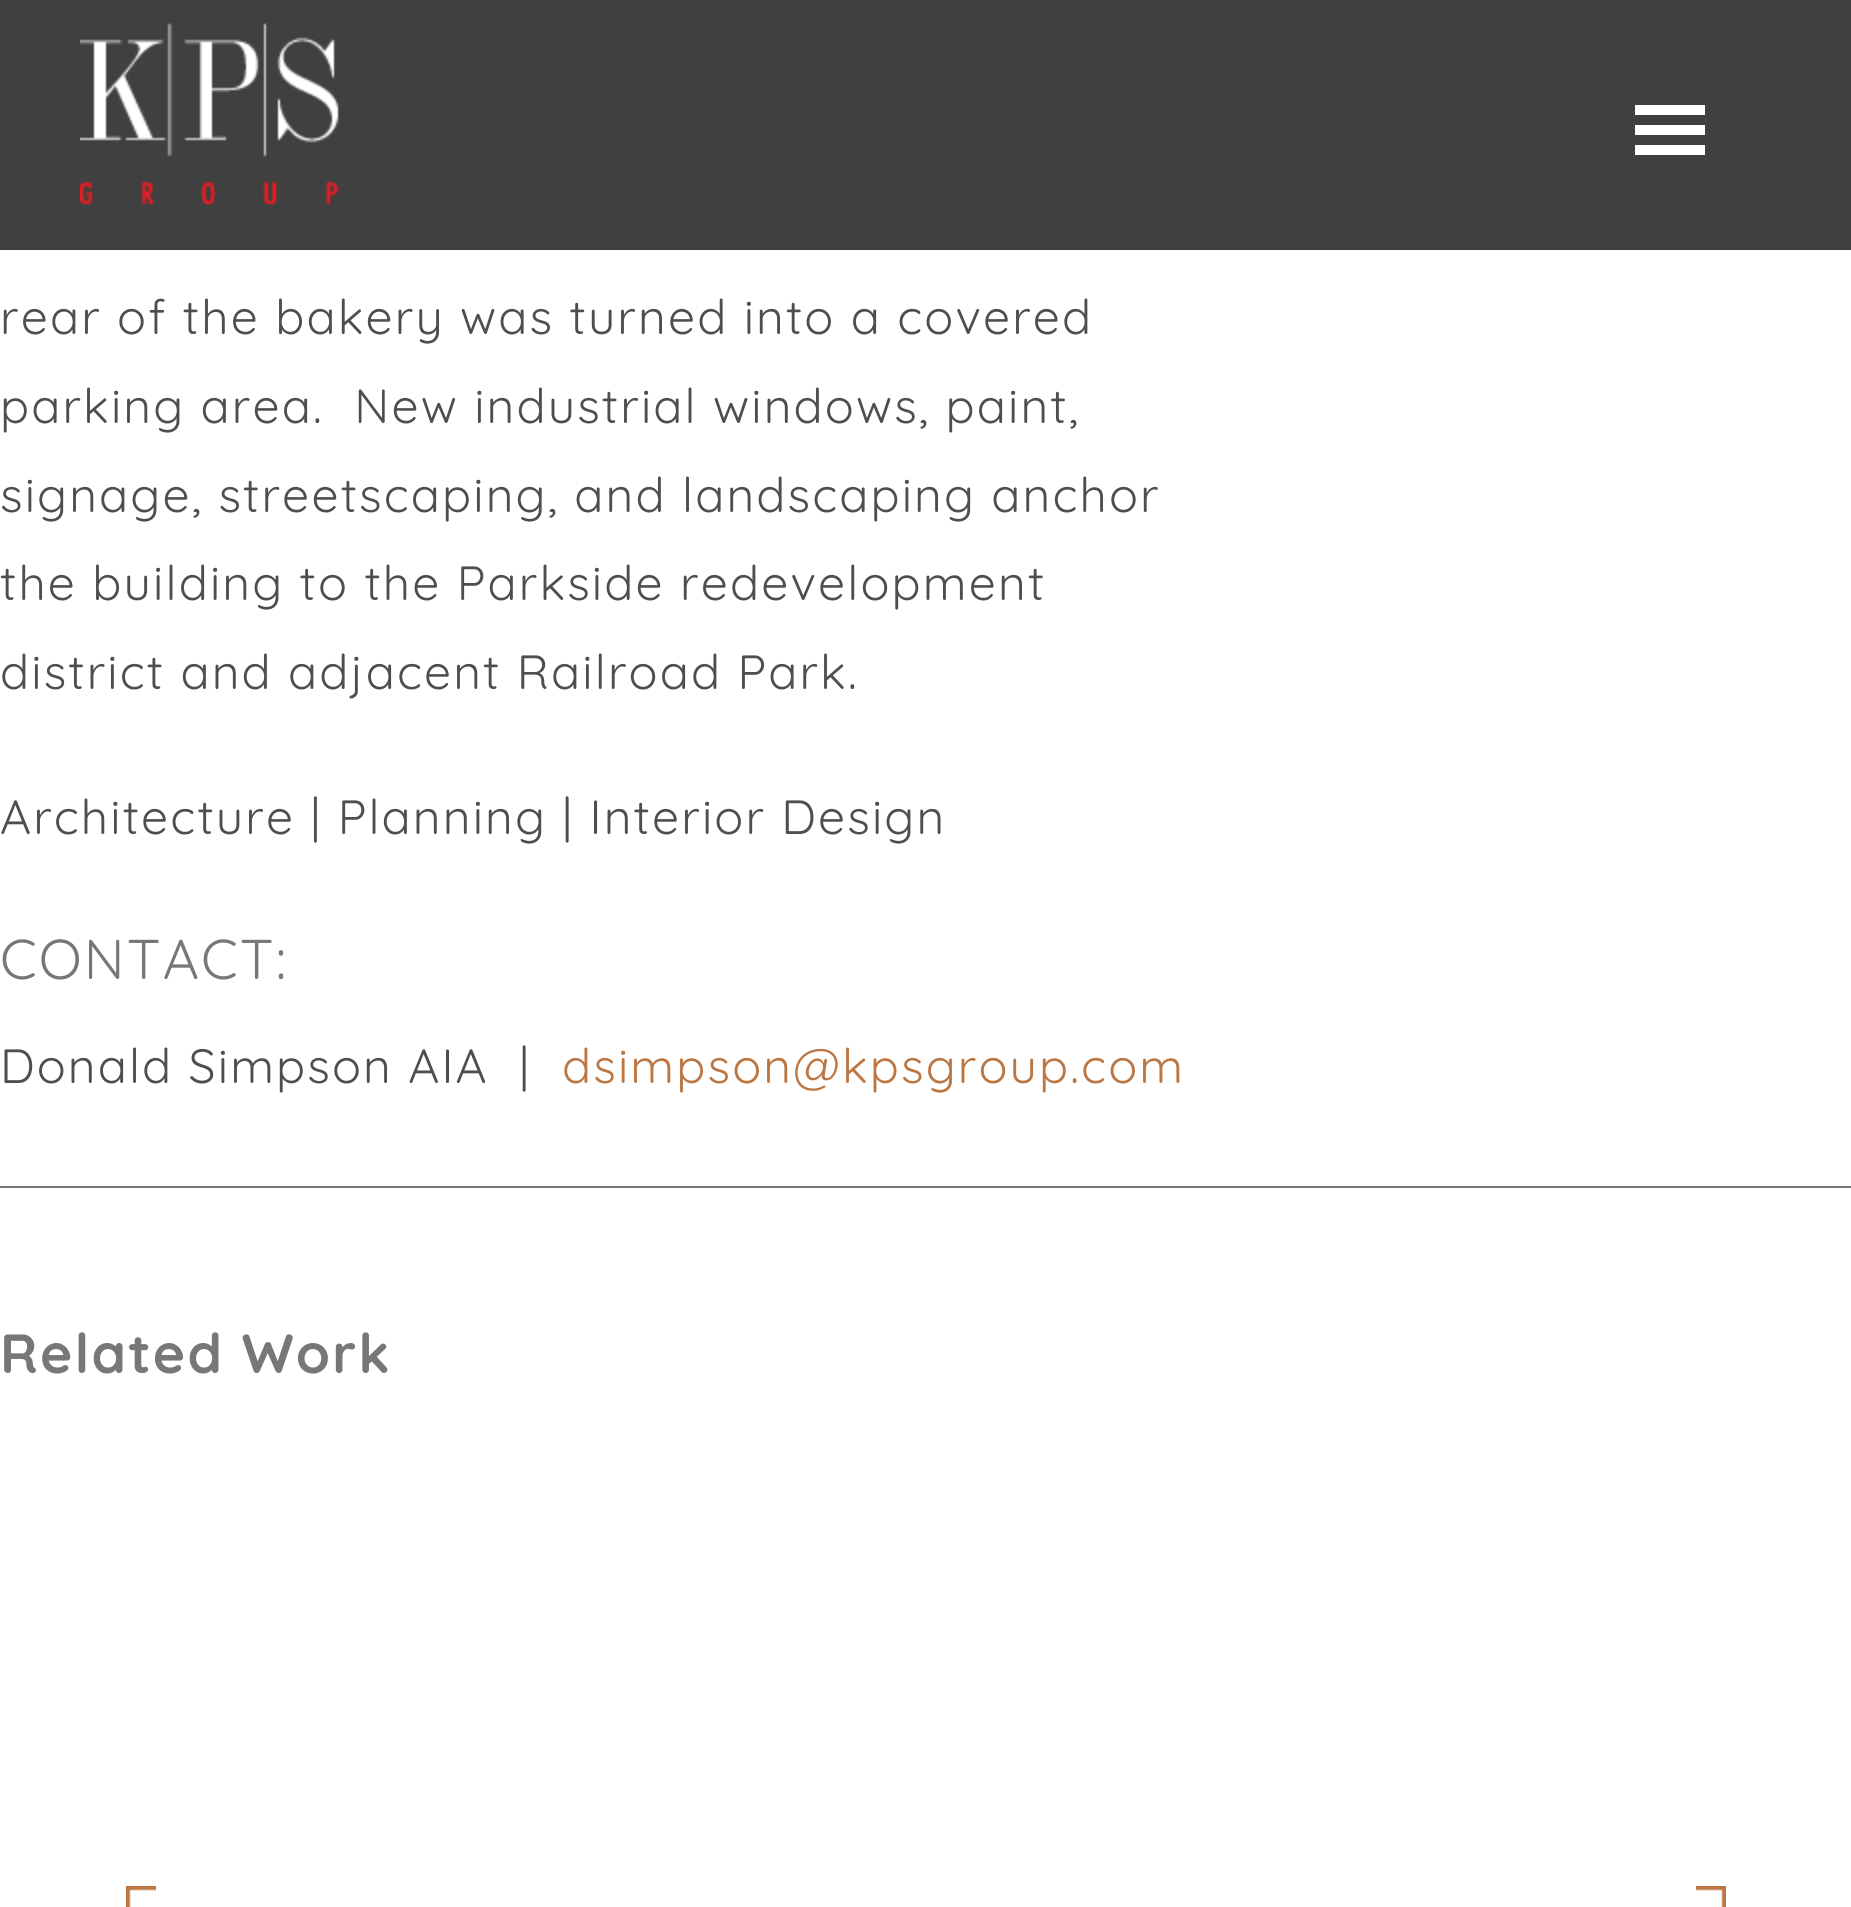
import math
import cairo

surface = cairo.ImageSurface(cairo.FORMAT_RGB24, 1851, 1907)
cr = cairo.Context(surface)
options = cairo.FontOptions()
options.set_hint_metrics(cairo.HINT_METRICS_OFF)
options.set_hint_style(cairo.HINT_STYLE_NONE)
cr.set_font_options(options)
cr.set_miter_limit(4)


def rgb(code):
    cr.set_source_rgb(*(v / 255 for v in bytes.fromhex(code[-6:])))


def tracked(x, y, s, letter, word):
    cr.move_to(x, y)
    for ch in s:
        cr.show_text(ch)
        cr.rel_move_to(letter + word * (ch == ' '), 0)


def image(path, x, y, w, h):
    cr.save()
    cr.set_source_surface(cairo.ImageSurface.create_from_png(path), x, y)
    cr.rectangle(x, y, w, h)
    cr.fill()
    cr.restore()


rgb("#ffffff")
cr.paint()
cr.set_source_rgba(0, 0, 0, 0.75)
cr.rectangle(0, 0, 1851, 250)
cr.fill()
image("img/1.png", 80, 23, 259, 182)
rgb("#ffffff")
cr.new_path()
cr.move_to(1635, 155)
cr.line_to(1705, 155)
cr.line_to(1705, 145)
cr.line_to(1635, 145)
cr.close_path()
cr.move_to(1635, 105)
cr.line_to(1635, 115)
cr.line_to(1705, 115)
cr.line_to(1705, 105)
cr.close_path()
cr.move_to(1635, 135)
cr.line_to(1705, 135)
cr.line_to(1705, 125)
cr.line_to(1635, 125)
cr.close_path()
cr.fill()
rgb("#777777")
cr.rectangle(0, 1186, 1851, 2)
cr.fill()
image("img/2.png", 126, 1886, 30, 21)
image("img/3.png", 1696, 1886, 30, 21)
cr.select_font_face("Quicksand")
cr.set_font_size(48)
rgb("#4e4e4e")
for x, y, s in [
    (0, 334, "rear of the bakery was turned into a covered"),
    (0, 423, "parking area.  New industrial windows, paint,"),
    (0, 512, "signage, streetscaping, and landscaping anchor"),
    (0, 600, "the building to the Parkside redevelopment"),
    (0, 689, "district and adjacent Railroad Park."),
    (0, 834, "Architecture | Planning | Interior Design"),
]:
    tracked(x, y, s, 2.15, 0)
cr.set_font_size(56)
rgb("#777777")
tracked(0, 979, "CONTACT:", 2.15, 0)
cr.set_font_size(48)
rgb("#4e4e4e")
tracked(0, 1083, "Donald Simpson AIA  |", 2.15, 0)
rgb("#bb7642")
tracked(562, 1083, "dsimpson@kpsgroup.com", 2.15, 0)
cr.select_font_face("Quicksand", cairo.FONT_SLANT_NORMAL, cairo.FONT_WEIGHT_BOLD)
cr.set_font_size(55)
rgb("#777777")
tracked(0, 1373, "Related Work", 2.15, 0)
surface.write_to_png("page.png")
